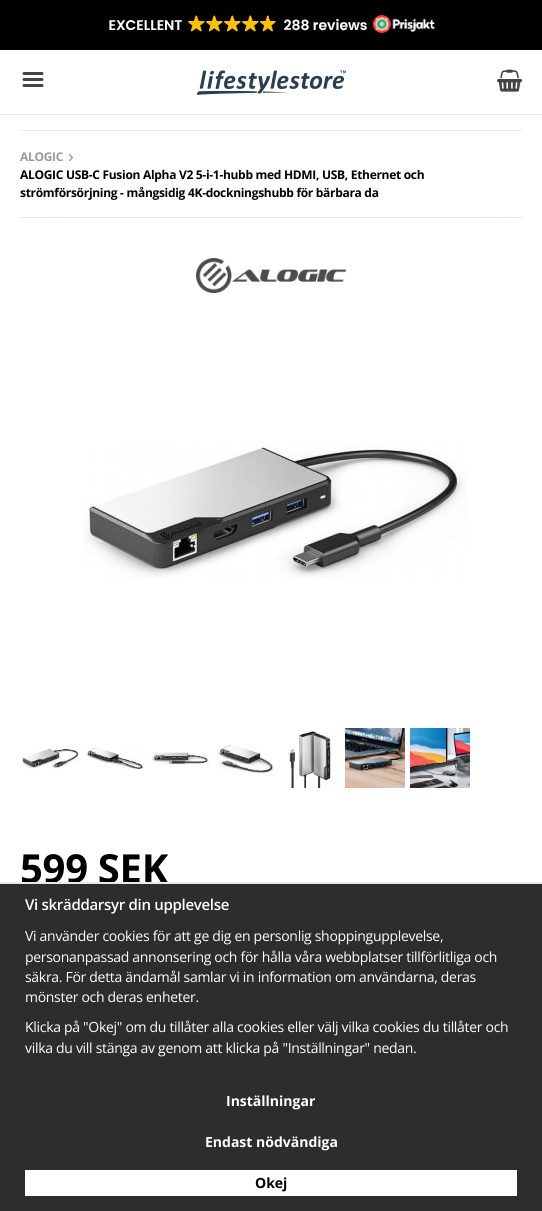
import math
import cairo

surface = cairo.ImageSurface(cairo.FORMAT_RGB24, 542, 1211)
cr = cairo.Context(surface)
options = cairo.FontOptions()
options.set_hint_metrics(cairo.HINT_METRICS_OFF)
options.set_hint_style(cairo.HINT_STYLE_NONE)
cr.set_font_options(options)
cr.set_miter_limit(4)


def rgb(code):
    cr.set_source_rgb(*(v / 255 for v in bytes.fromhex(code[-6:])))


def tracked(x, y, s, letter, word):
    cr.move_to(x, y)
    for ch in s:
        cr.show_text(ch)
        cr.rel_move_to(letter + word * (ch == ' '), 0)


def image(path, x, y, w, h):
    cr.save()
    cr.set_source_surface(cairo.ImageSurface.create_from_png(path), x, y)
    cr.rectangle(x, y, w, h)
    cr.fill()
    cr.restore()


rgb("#ffffff")
cr.paint()
rgb("#000000")
cr.rectangle(0, 0, 542, 50)
cr.fill()
image("img/1.png", 109, 15, 327, 18)
rgb("#e9e9e9")
cr.rectangle(0, 114, 542, 1)
cr.fill()
image("img/2.png", 22, 72, 22, 15)
image("img/3.png", 197, 70, 149, 25)
image("img/4.png", 497, 69, 26, 23)
image("img/5.png", 20, 130, 502, 1)
image("img/6.png", 69, 154, 4, 7)
image("img/7.png", 20, 217, 502, 1)
image("img/8.png", 196, 258, 150, 35)
image("img/9.png", 83, 444, 384, 135)
image("img/10.png", 22, 748, 57, 21)
image("img/11.png", 86, 747, 59, 23)
image("img/12.png", 151, 752, 59, 13)
image("img/13.png", 217, 744, 57, 30)
image("img/14.png", 288, 731, 47, 57)
image("img/15.png", 345, 728, 60, 60)
image("img/16.png", 410, 728, 60, 60)
rgb("#2d2d2d")
cr.rectangle(0, 884, 542, 327)
cr.fill()
rgb("#ffffff")
cr.rectangle(25, 1170, 492, 26)
cr.fill()
cr.select_font_face("Open Sans", cairo.FONT_SLANT_NORMAL, cairo.FONT_WEIGHT_BOLD)
cr.set_font_size(12)
rgb("#999999")
tracked(20, 161, "ALOGIC", -0.3, 0)
rgb("#000000")
tracked(20, 179, "ALOGIC USB-C Fusion Alpha V2 5-i-1-hubb med HDMI, USB, Ethernet och", -0.3, 0)
tracked(20, 197, "strömförsörjning - mångsidig 4K-dockningshubb för bärbara da", -0.3, 0)
cr.set_font_size(40)
tracked(20, 883, "599 SEK", -0.3, 0)
rgb("#e9e9e9")
cr.rectangle(0, 882, 542, 2)
cr.fill()
cr.select_font_face("Open Sans SemiBold")
cr.set_font_size(15)
rgb("#ffffff")
tracked(25, 910, "Vi skräddarsyr din upplevelse", -0.3, 0)
cr.select_font_face("Open Sans")
cr.set_font_size(14)
for x, y, s in [
    (25, 941, "Vi använder cookies för att ge dig en personlig shoppingupplevelse,"),
    (25, 962, "personanpassad annonsering och för hålla våra webbplatser tillförlitliga och"),
    (25, 982, "säkra. För detta ändamål samlar vi in information om användarna, deras"),
    (25, 1002, "mönster och deras enheter."),
    (25, 1032, "Klicka på \"Okej\" om du tillåter alla cookies eller välj vilka cookies du tillåter och"),
    (25, 1053, "vilka du vill stänga av genom att klicka på \"Inställningar\" nedan."),
]:
    tracked(x, y, s, -0.3, 0)
cr.select_font_face("Open Sans", cairo.FONT_SLANT_NORMAL, cairo.FONT_WEIGHT_BOLD)
cr.move_to(226, 1106)
cr.show_text("Inställningar")
cr.move_to(205, 1147)
cr.show_text("Endast nödvändiga")
rgb("#000000")
cr.move_to(255, 1188)
cr.show_text("Okej")
surface.write_to_png("page.png")
